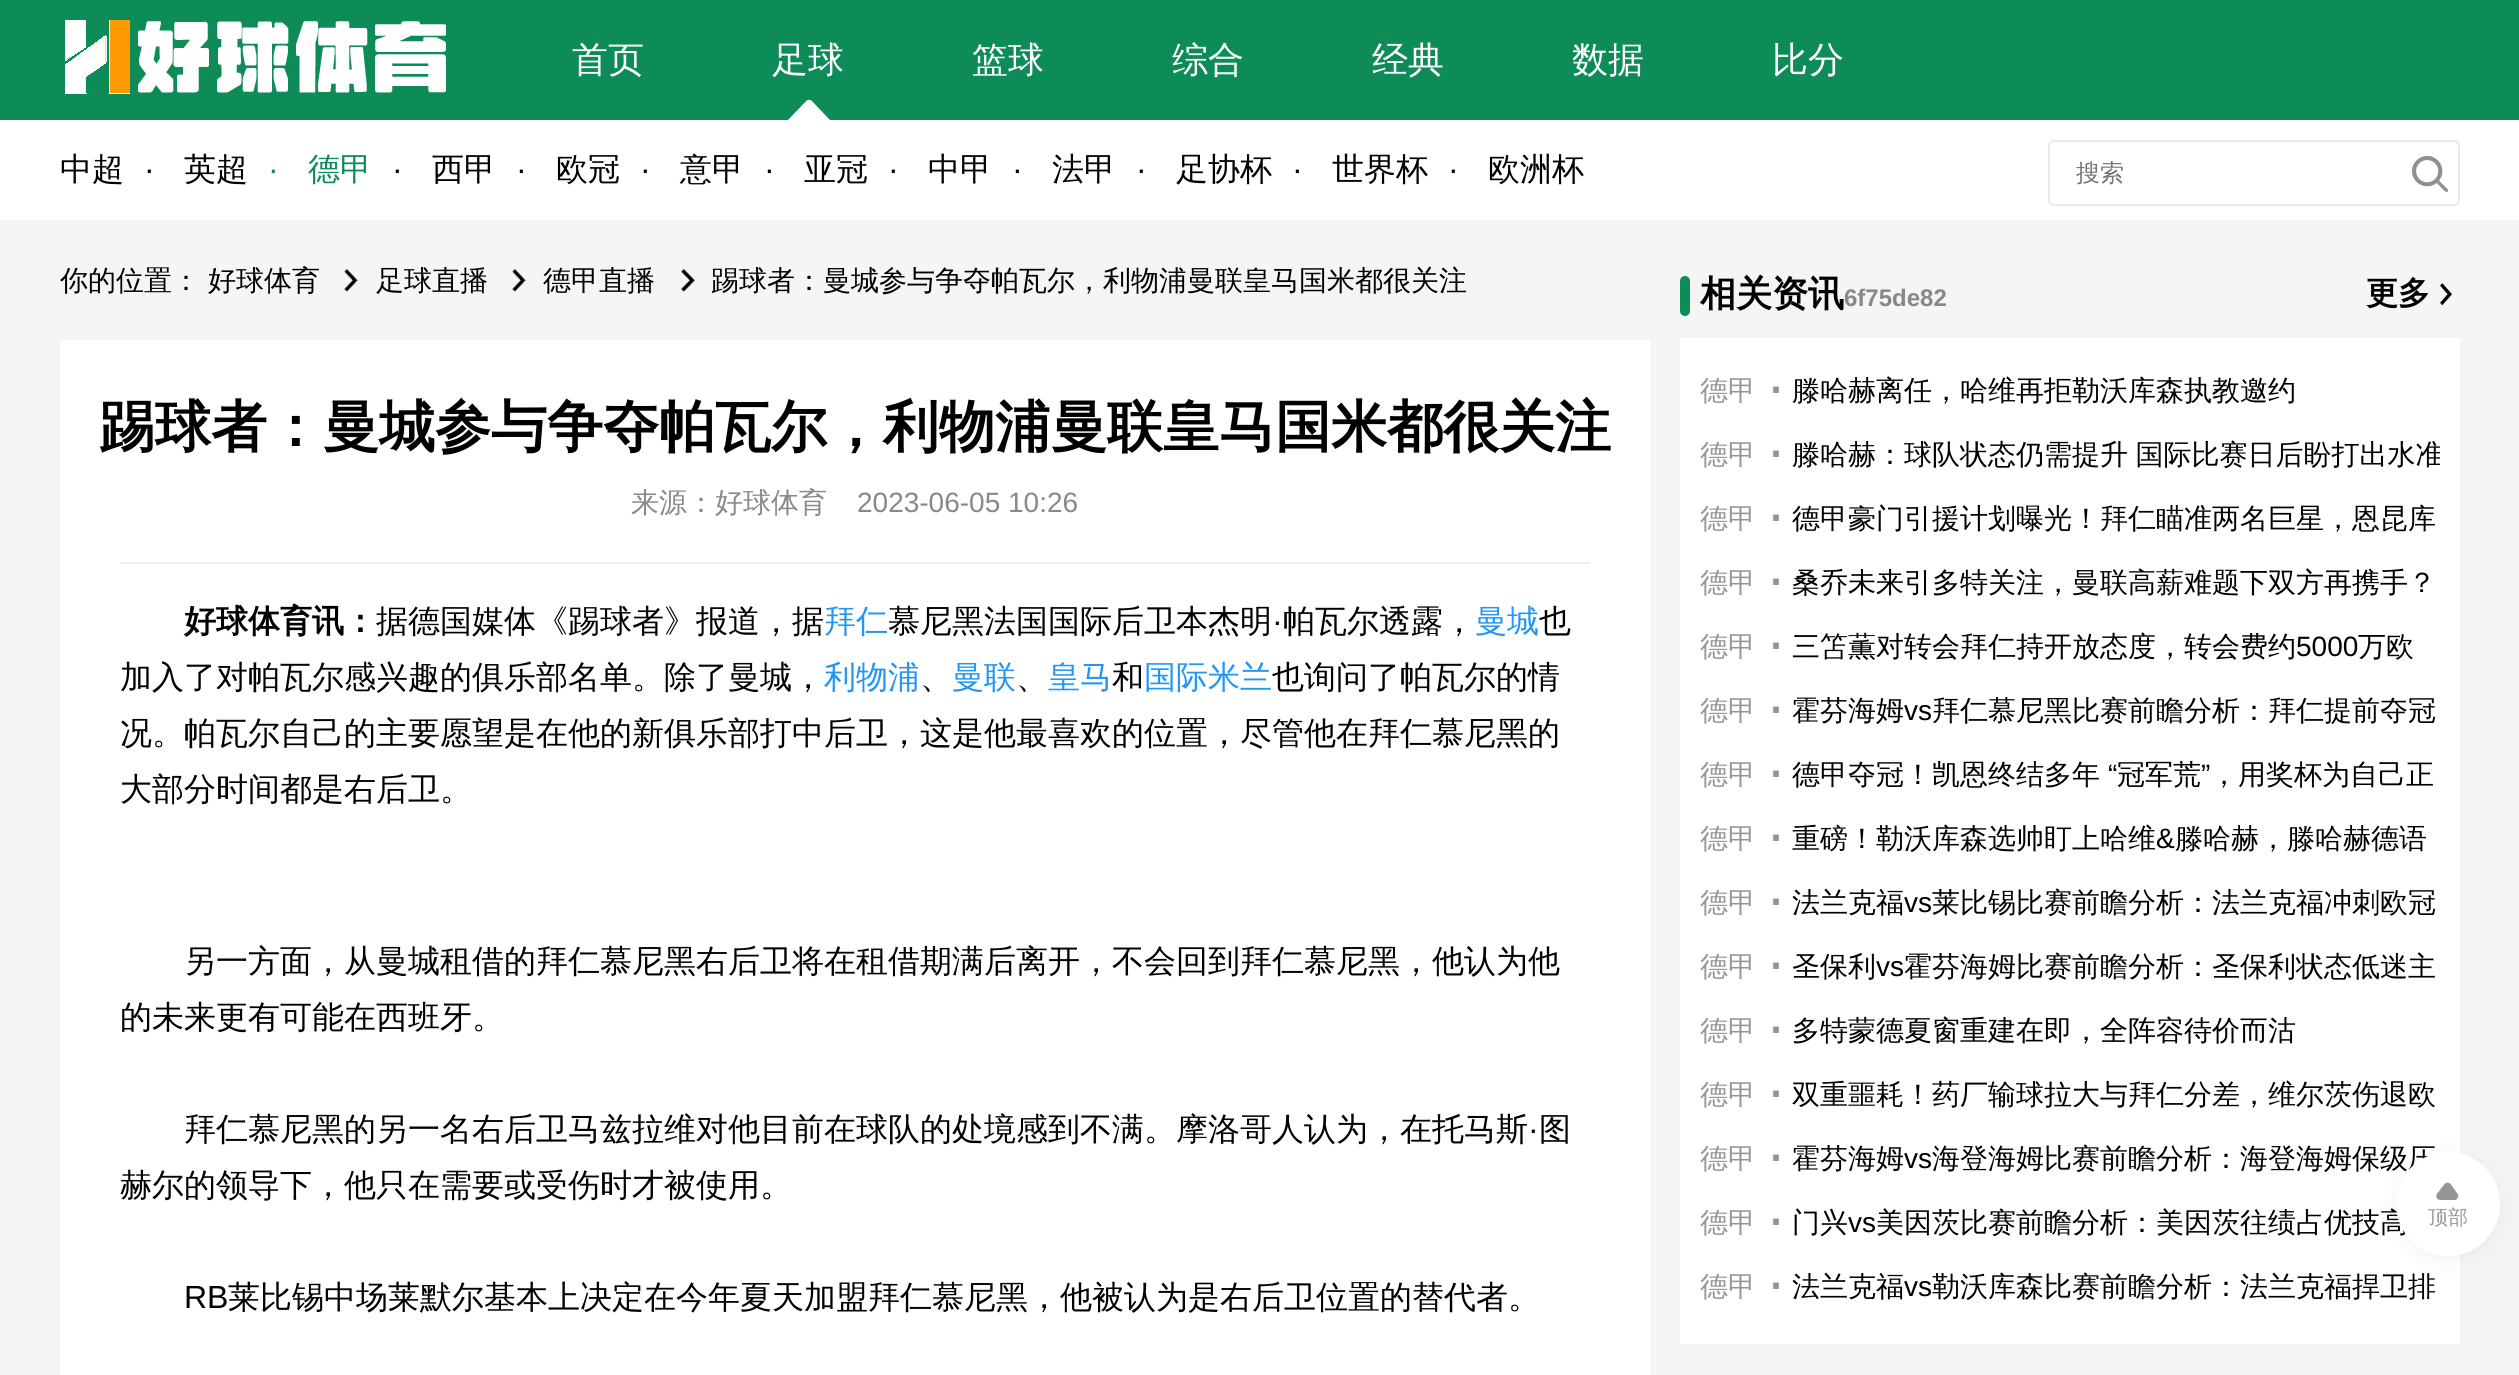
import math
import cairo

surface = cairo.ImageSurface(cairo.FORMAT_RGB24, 2519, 1375)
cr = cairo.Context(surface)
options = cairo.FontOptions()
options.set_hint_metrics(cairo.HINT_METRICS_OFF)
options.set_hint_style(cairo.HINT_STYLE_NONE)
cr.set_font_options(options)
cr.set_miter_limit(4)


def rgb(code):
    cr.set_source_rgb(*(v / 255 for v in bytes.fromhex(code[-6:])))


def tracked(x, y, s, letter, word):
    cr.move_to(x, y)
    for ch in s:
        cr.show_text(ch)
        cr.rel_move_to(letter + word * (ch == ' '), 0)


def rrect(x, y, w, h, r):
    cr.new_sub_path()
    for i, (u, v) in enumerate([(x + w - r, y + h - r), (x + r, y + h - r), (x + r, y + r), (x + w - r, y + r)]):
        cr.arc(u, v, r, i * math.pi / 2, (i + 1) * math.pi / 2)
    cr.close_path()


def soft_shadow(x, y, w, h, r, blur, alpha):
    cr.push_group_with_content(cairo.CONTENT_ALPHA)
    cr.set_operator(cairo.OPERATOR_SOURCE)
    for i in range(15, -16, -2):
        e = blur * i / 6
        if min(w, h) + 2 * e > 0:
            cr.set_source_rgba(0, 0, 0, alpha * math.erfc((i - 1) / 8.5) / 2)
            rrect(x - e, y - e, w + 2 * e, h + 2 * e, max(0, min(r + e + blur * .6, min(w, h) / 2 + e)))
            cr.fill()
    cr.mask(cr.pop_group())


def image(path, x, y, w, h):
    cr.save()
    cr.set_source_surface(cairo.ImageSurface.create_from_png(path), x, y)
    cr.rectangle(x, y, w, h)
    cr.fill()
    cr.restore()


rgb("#f5f5f5")
cr.paint()
rgb("#0e8c58")
cr.rectangle(0, 0, 2519, 120)
cr.fill()
image("img/1.png", 65, 20, 381, 74)
image("img/2.png", 788, 99, 42, 21)
rgb("#ffffff")
cr.rectangle(0, 120, 2519, 100)
cr.fill()
rrect(2049, 141, 410, 64, 5)
rgb("#e9e9ee")
cr.stroke()
image("img/3.png", 2412, 155, 36, 37)
image("img/4.png", 344, 269, 14, 23)
image("img/4.png", 512, 269, 14, 23)
image("img/5.png", 681, 269, 14, 23)
rgb("#ffffff")
cr.rectangle(60, 340, 1590, 1035)
cr.fill()
rgb("#eeeeee")
cr.rectangle(120, 562, 1470, 2)
cr.fill()
rgb("#0e8c58")
rrect(1680, 276, 10, 40, 5)
cr.fill()
image("img/6.png", 2440, 283, 12, 23)
rgb("#ffffff")
cr.rectangle(1680, 338, 780, 1006)
cr.fill()
rgb("#000000")
soft_shadow(2396, 1156, 104, 104, 52, 10, 0.05)
cr.select_font_face("WenQuanYi Zen Hei Medium")
cr.set_font_size(36)
rgb("#ffffff")
for x, y, s in [
    (572, 72, "首页"),
    (772, 72, "足球"),
    (972, 72, "篮球"),
    (1172, 72, "综合"),
    (1372, 72, "经典"),
    (1572, 72, "数据"),
    (1772, 72, "比分"),
]:
    cr.move_to(x, y)
    cr.show_text(s)
cr.set_font_size(32)
rgb("#000000")
cr.move_to(60, 180)
cr.show_text("中超")
cr.select_font_face("Liberation Sans")
cr.move_to(144, 180)
cr.show_text("·")
cr.select_font_face("WenQuanYi Zen Hei Medium")
cr.move_to(184, 180)
cr.show_text("英超")
cr.select_font_face("Liberation Sans")
rgb("#0e8c58")
cr.move_to(268, 180)
cr.show_text("·")
cr.select_font_face("WenQuanYi Zen Hei Medium")
cr.move_to(308, 180)
cr.show_text("德甲")
cr.select_font_face("Liberation Sans")
rgb("#000000")
cr.move_to(392, 180)
cr.show_text("·")
cr.select_font_face("WenQuanYi Zen Hei Medium")
cr.move_to(432, 180)
cr.show_text("西甲")
cr.select_font_face("Liberation Sans")
cr.move_to(516, 180)
cr.show_text("·")
cr.select_font_face("WenQuanYi Zen Hei Medium")
cr.move_to(556, 180)
cr.show_text("欧冠")
cr.select_font_face("Liberation Sans")
cr.move_to(640, 180)
cr.show_text("·")
cr.select_font_face("WenQuanYi Zen Hei Medium")
cr.move_to(680, 180)
cr.show_text("意甲")
cr.select_font_face("Liberation Sans")
cr.move_to(764, 180)
cr.show_text("·")
cr.select_font_face("WenQuanYi Zen Hei Medium")
cr.move_to(804, 180)
cr.show_text("亚冠")
cr.select_font_face("Liberation Sans")
cr.move_to(888, 180)
cr.show_text("·")
cr.select_font_face("WenQuanYi Zen Hei Medium")
cr.move_to(928, 180)
cr.show_text("中甲")
cr.select_font_face("Liberation Sans")
cr.move_to(1012, 180)
cr.show_text("·")
cr.select_font_face("WenQuanYi Zen Hei Medium")
cr.move_to(1052, 180)
cr.show_text("法甲")
cr.select_font_face("Liberation Sans")
cr.move_to(1136, 180)
cr.show_text("·")
cr.select_font_face("WenQuanYi Zen Hei Medium")
cr.move_to(1176, 180)
cr.show_text("足协杯")
cr.select_font_face("Liberation Sans")
cr.move_to(1292, 180)
cr.show_text("·")
cr.select_font_face("WenQuanYi Zen Hei Medium")
cr.move_to(1332, 180)
cr.show_text("世界杯")
cr.select_font_face("Liberation Sans")
cr.move_to(1448, 180)
cr.show_text("·")
cr.select_font_face("WenQuanYi Zen Hei Medium")
cr.move_to(1488, 180)
cr.show_text("欧洲杯")
cr.set_font_size(24)
rgb("#757575")
cr.move_to(2076, 181)
cr.show_text("搜索")
cr.set_font_size(28)
rgb("#000000")
for x, y, s in [
    (60, 290, "你的位置："),
    (208, 290, "好球体育"),
    (376, 290, "足球直播"),
    (543, 290, "德甲直播"),
    (711, 290, "踢球者：曼城参与争夺帕瓦尔，利物浦曼联皇马国米都很关注"),
]:
    cr.move_to(x, y)
    cr.show_text(s)
cr.select_font_face("WenQuanYi Zen Hei", cairo.FONT_SLANT_NORMAL, cairo.FONT_WEIGHT_BOLD)
cr.set_font_size(56)
cr.move_to(99, 446)
cr.show_text("踢球者：曼城参与争夺帕瓦尔，利物浦曼联皇马国米都很关注")
cr.select_font_face("WenQuanYi Zen Hei Medium")
cr.set_font_size(28)
rgb("#888888")
cr.move_to(631, 512)
cr.show_text("来源：好球体育")
cr.select_font_face("Liberation Sans")
cr.move_to(857, 512)
cr.show_text("2023-06-05 10:26")
cr.select_font_face("WenQuanYi Zen Hei", cairo.FONT_SLANT_NORMAL, cairo.FONT_WEIGHT_BOLD)
cr.set_font_size(32)
rgb("#000000")
cr.move_to(184, 632)
cr.show_text("好球体育讯：")
cr.select_font_face("WenQuanYi Zen Hei Medium")
cr.move_to(376, 632)
cr.show_text("据德国媒体《踢球者》报道，据")
rgb("#2196f3")
cr.move_to(824, 632)
cr.show_text("拜仁")
rgb("#000000")
cr.move_to(888, 632)
cr.show_text("慕尼黑法国国际后卫本杰明")
cr.select_font_face("Liberation Sans")
cr.move_to(1272, 632)
cr.show_text("·")
cr.select_font_face("WenQuanYi Zen Hei Medium")
cr.move_to(1283, 632)
cr.show_text("帕瓦尔透露，")
rgb("#2196f3")
cr.move_to(1475, 632)
cr.show_text("曼城")
rgb("#000000")
cr.move_to(1539, 632)
cr.show_text("也")
cr.move_to(120, 688)
cr.show_text("加入了对帕瓦尔感兴趣的俱乐部名单。除了曼城，")
rgb("#2196f3")
cr.move_to(824, 688)
cr.show_text("利物浦")
rgb("#000000")
cr.move_to(920, 688)
cr.show_text("、")
rgb("#2196f3")
cr.move_to(952, 688)
cr.show_text("曼联")
rgb("#000000")
cr.move_to(1016, 688)
cr.show_text("、")
rgb("#2196f3")
cr.move_to(1048, 688)
cr.show_text("皇马")
rgb("#000000")
cr.move_to(1112, 688)
cr.show_text("和")
rgb("#2196f3")
cr.move_to(1144, 688)
cr.show_text("国际米兰")
rgb("#000000")
for x, y, s in [
    (1272, 688, "也询问了帕瓦尔的情"),
    (120, 744, "况。帕瓦尔自己的主要愿望是在他的新俱乐部打中后卫，这是他最喜欢的位置，尽管他在拜仁慕尼黑的"),
    (120, 800, "大部分时间都是右后卫。"),
    (184, 972, "另一方面，从曼城租借的拜仁慕尼黑右后卫将在租借期满后离开，不会回到拜仁慕尼黑，他认为他"),
    (120, 1028, "的未来更有可能在西班牙。"),
    (184, 1140, "拜仁慕尼黑的另一名右后卫马兹拉维对他目前在球队的处境感到不满。摩洛哥人认为，在托马斯"),
]:
    cr.move_to(x, y)
    cr.show_text(s)
cr.select_font_face("Liberation Sans")
cr.move_to(1528, 1140)
cr.show_text("·")
cr.select_font_face("WenQuanYi Zen Hei Medium")
cr.move_to(1539, 1140)
cr.show_text("图")
cr.move_to(120, 1196)
cr.show_text("赫尔的领导下，他只在需要或受伤时才被使用。")
cr.select_font_face("Liberation Sans")
cr.move_to(184, 1308)
cr.show_text("RB")
cr.select_font_face("WenQuanYi Zen Hei Medium")
cr.move_to(228, 1308)
cr.show_text("莱比锡中场莱默尔基本上决定在今年夏天加盟拜仁慕尼黑，他被认为是右后卫位置的替代者。")
cr.select_font_face("WenQuanYi Zen Hei", cairo.FONT_SLANT_NORMAL, cairo.FONT_WEIGHT_BOLD)
cr.set_font_size(36)
cr.move_to(1700, 306)
cr.show_text("相关资讯")
cr.select_font_face("Liberation Sans", cairo.FONT_SLANT_NORMAL, cairo.FONT_WEIGHT_BOLD)
cr.set_font_size(24)
rgb("#888888")
cr.move_to(1844, 306)
cr.show_text("6f75de82")
cr.select_font_face("WenQuanYi Zen Hei", cairo.FONT_SLANT_NORMAL, cairo.FONT_WEIGHT_BOLD)
cr.set_font_size(32)
rgb("#000000")
cr.move_to(2366, 304)
cr.show_text("更多")
cr.select_font_face("WenQuanYi Zen Hei Medium")
cr.set_font_size(28)
rgb("#959595")
cr.move_to(1700, 400)
cr.show_text("德甲")
cr.select_font_face("Liberation Sans")
cr.set_font_size(60)
cr.move_to(1766, 406)
cr.show_text("·")
cr.select_font_face("WenQuanYi Zen Hei Medium")
cr.set_font_size(28)
rgb("#000000")
cr.move_to(1792, 400)
cr.show_text("滕哈赫离任，哈维再拒勒沃库森执教邀约")
rgb("#959595")
cr.move_to(1700, 464)
cr.show_text("德甲")
cr.select_font_face("Liberation Sans")
cr.set_font_size(60)
cr.move_to(1766, 470)
cr.show_text("·")
cr.save()
cr.rectangle(1700, 358, 740, 960)
cr.clip()
cr.select_font_face("WenQuanYi Zen Hei Medium")
cr.set_font_size(28)
rgb("#000000")
tracked(1792, 464, "滕哈赫：球队状态仍需提升 国际比赛日后盼打出水准", 0, -1)
cr.restore()
cr.select_font_face("WenQuanYi Zen Hei Medium")
cr.set_font_size(28)
cr.move_to(1700, 528)
cr.show_text("德甲")
cr.select_font_face("Liberation Sans")
cr.set_font_size(60)
cr.move_to(1766, 534)
cr.show_text("·")
cr.select_font_face("WenQuanYi Zen Hei Medium")
cr.set_font_size(28)
rgb("#000000")
cr.move_to(1792, 528)
cr.show_text("德甲豪门引援计划曝光！拜仁瞄准两名巨星，恩昆库")
rgb("#959595")
cr.move_to(1700, 592)
cr.show_text("德甲")
cr.select_font_face("Liberation Sans")
cr.set_font_size(60)
cr.move_to(1766, 598)
cr.show_text("·")
cr.select_font_face("WenQuanYi Zen Hei Medium")
cr.set_font_size(28)
rgb("#000000")
cr.move_to(1792, 592)
cr.show_text("桑乔未来引多特关注，曼联高薪难题下双方再携手？")
rgb("#959595")
cr.move_to(1700, 656)
cr.show_text("德甲")
cr.select_font_face("Liberation Sans")
cr.set_font_size(60)
cr.move_to(1766, 662)
cr.show_text("·")
cr.select_font_face("WenQuanYi Zen Hei Medium")
cr.set_font_size(28)
rgb("#000000")
cr.move_to(1792, 656)
cr.show_text("三笘薫对转会拜仁持开放态度，转会费约")
cr.select_font_face("Liberation Sans")
cr.move_to(2296, 656)
cr.show_text("5000")
cr.select_font_face("WenQuanYi Zen Hei Medium")
cr.move_to(2358, 656)
cr.show_text("万欧")
rgb("#959595")
cr.move_to(1700, 720)
cr.show_text("德甲")
cr.select_font_face("Liberation Sans")
cr.set_font_size(60)
cr.move_to(1766, 726)
cr.show_text("·")
cr.select_font_face("WenQuanYi Zen Hei Medium")
cr.set_font_size(28)
rgb("#000000")
cr.move_to(1792, 720)
cr.show_text("霍芬海姆")
cr.select_font_face("Liberation Sans")
cr.move_to(1904, 720)
cr.show_text("vs")
cr.select_font_face("WenQuanYi Zen Hei Medium")
cr.move_to(1932, 720)
cr.show_text("拜仁慕尼黑比赛前瞻分析：拜仁提前夺冠")
rgb("#959595")
cr.move_to(1700, 784)
cr.show_text("德甲")
cr.select_font_face("Liberation Sans")
cr.set_font_size(60)
cr.move_to(1766, 790)
cr.show_text("·")
cr.select_font_face("WenQuanYi Zen Hei Medium")
cr.set_font_size(28)
rgb("#000000")
cr.move_to(1792, 784)
cr.show_text("德甲夺冠！凯恩终结多年")
cr.select_font_face("Liberation Sans")
cr.move_to(2108, 784)
cr.show_text("“")
cr.select_font_face("WenQuanYi Zen Hei Medium")
cr.move_to(2117, 784)
cr.show_text("冠军荒")
cr.select_font_face("Liberation Sans")
cr.move_to(2201, 784)
cr.show_text("”")
cr.select_font_face("WenQuanYi Zen Hei Medium")
cr.move_to(2210, 784)
cr.show_text("，用奖杯为自己正")
rgb("#959595")
cr.move_to(1700, 848)
cr.show_text("德甲")
cr.select_font_face("Liberation Sans")
cr.set_font_size(60)
cr.move_to(1766, 854)
cr.show_text("·")
cr.select_font_face("WenQuanYi Zen Hei Medium")
cr.set_font_size(28)
rgb("#000000")
cr.move_to(1792, 848)
cr.show_text("重磅！勒沃库森选帅盯上哈维")
cr.select_font_face("Liberation Sans")
cr.move_to(2156, 848)
cr.show_text("&")
cr.select_font_face("WenQuanYi Zen Hei Medium")
cr.move_to(2175, 848)
cr.show_text("滕哈赫，滕哈赫德语")
rgb("#959595")
cr.move_to(1700, 912)
cr.show_text("德甲")
cr.select_font_face("Liberation Sans")
cr.set_font_size(60)
cr.move_to(1766, 918)
cr.show_text("·")
cr.select_font_face("WenQuanYi Zen Hei Medium")
cr.set_font_size(28)
rgb("#000000")
cr.move_to(1792, 912)
cr.show_text("法兰克福")
cr.select_font_face("Liberation Sans")
cr.move_to(1904, 912)
cr.show_text("vs")
cr.select_font_face("WenQuanYi Zen Hei Medium")
cr.move_to(1932, 912)
cr.show_text("莱比锡比赛前瞻分析：法兰克福冲刺欧冠")
rgb("#959595")
cr.move_to(1700, 976)
cr.show_text("德甲")
cr.select_font_face("Liberation Sans")
cr.set_font_size(60)
cr.move_to(1766, 982)
cr.show_text("·")
cr.select_font_face("WenQuanYi Zen Hei Medium")
cr.set_font_size(28)
rgb("#000000")
cr.move_to(1792, 976)
cr.show_text("圣保利")
cr.select_font_face("Liberation Sans")
cr.move_to(1876, 976)
cr.show_text("vs")
cr.select_font_face("WenQuanYi Zen Hei Medium")
cr.move_to(1904, 976)
cr.show_text("霍芬海姆比赛前瞻分析：圣保利状态低迷主")
rgb("#959595")
cr.move_to(1700, 1040)
cr.show_text("德甲")
cr.select_font_face("Liberation Sans")
cr.set_font_size(60)
cr.move_to(1766, 1046)
cr.show_text("·")
cr.select_font_face("WenQuanYi Zen Hei Medium")
cr.set_font_size(28)
rgb("#000000")
cr.move_to(1792, 1040)
cr.show_text("多特蒙德夏窗重建在即，全阵容待价而沽")
rgb("#959595")
cr.move_to(1700, 1104)
cr.show_text("德甲")
cr.select_font_face("Liberation Sans")
cr.set_font_size(60)
cr.move_to(1766, 1110)
cr.show_text("·")
cr.select_font_face("WenQuanYi Zen Hei Medium")
cr.set_font_size(28)
rgb("#000000")
cr.move_to(1792, 1104)
cr.show_text("双重噩耗！药厂输球拉大与拜仁分差，维尔茨伤退欧")
rgb("#959595")
cr.move_to(1700, 1168)
cr.show_text("德甲")
cr.select_font_face("Liberation Sans")
cr.set_font_size(60)
cr.move_to(1766, 1174)
cr.show_text("·")
cr.select_font_face("WenQuanYi Zen Hei Medium")
cr.set_font_size(28)
rgb("#000000")
cr.move_to(1792, 1168)
cr.show_text("霍芬海姆")
cr.select_font_face("Liberation Sans")
cr.move_to(1904, 1168)
cr.show_text("vs")
cr.select_font_face("WenQuanYi Zen Hei Medium")
cr.move_to(1932, 1168)
cr.show_text("海登海姆比赛前瞻分析：海登海姆保级压")
rgb("#959595")
cr.move_to(1700, 1232)
cr.show_text("德甲")
cr.select_font_face("Liberation Sans")
cr.set_font_size(60)
cr.move_to(1766, 1238)
cr.show_text("·")
cr.select_font_face("WenQuanYi Zen Hei Medium")
cr.set_font_size(28)
rgb("#000000")
cr.move_to(1792, 1232)
cr.show_text("门兴")
cr.select_font_face("Liberation Sans")
cr.move_to(1848, 1232)
cr.show_text("vs")
cr.select_font_face("WenQuanYi Zen Hei Medium")
cr.move_to(1876, 1232)
cr.show_text("美因茨比赛前瞻分析：美因茨往绩占优技高")
rgb("#959595")
cr.move_to(1700, 1296)
cr.show_text("德甲")
cr.select_font_face("Liberation Sans")
cr.set_font_size(60)
cr.move_to(1766, 1302)
cr.show_text("·")
cr.select_font_face("WenQuanYi Zen Hei Medium")
cr.set_font_size(28)
rgb("#000000")
cr.move_to(1792, 1296)
cr.show_text("法兰克福")
cr.select_font_face("Liberation Sans")
cr.move_to(1904, 1296)
cr.show_text("vs")
cr.select_font_face("WenQuanYi Zen Hei Medium")
cr.move_to(1932, 1296)
cr.show_text("勒沃库森比赛前瞻分析：法兰克福捍卫排")
rgb("#ffffff")
cr.new_path()
cr.arc(2448, 1204, 52, 0, 2 * math.pi)
cr.fill()
image("img/7.png", 2436, 1182, 23, 18)
cr.set_font_size(20)
rgb("#959595")
cr.move_to(2428, 1224)
cr.show_text("顶部")
surface.write_to_png("page.png")
